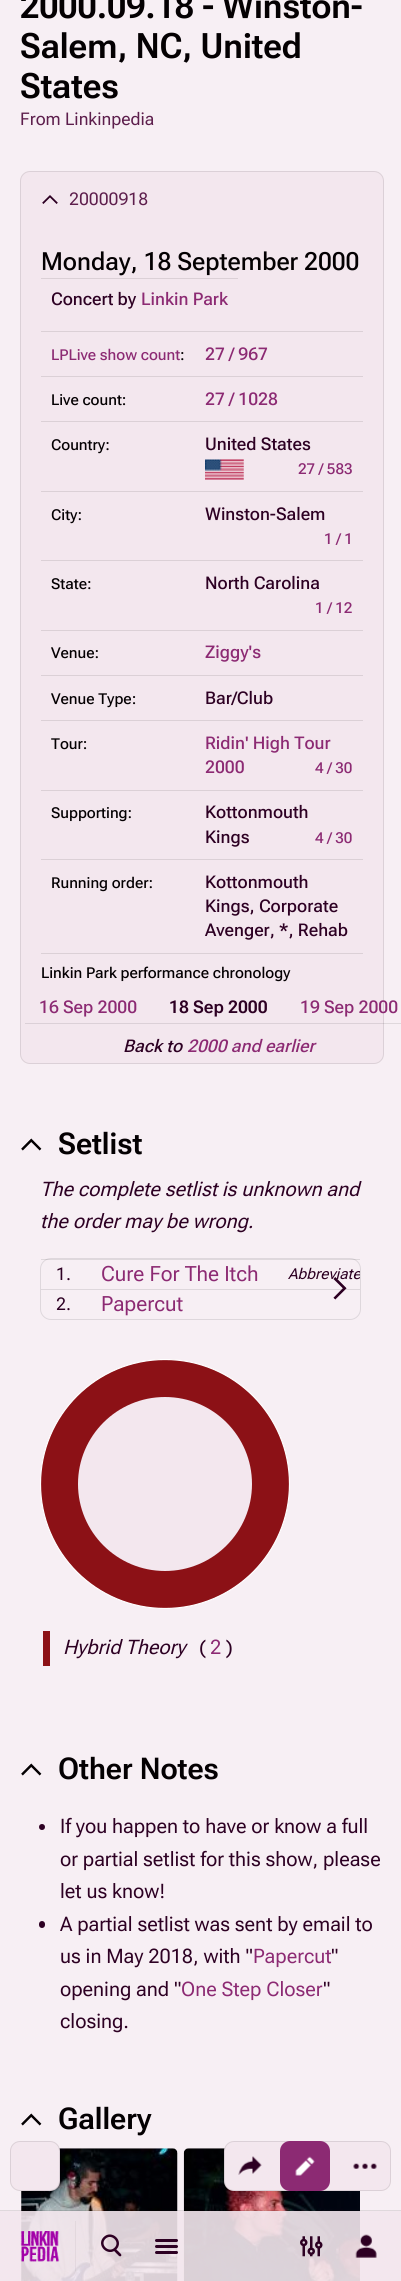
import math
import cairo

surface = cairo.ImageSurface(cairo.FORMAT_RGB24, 401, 2281)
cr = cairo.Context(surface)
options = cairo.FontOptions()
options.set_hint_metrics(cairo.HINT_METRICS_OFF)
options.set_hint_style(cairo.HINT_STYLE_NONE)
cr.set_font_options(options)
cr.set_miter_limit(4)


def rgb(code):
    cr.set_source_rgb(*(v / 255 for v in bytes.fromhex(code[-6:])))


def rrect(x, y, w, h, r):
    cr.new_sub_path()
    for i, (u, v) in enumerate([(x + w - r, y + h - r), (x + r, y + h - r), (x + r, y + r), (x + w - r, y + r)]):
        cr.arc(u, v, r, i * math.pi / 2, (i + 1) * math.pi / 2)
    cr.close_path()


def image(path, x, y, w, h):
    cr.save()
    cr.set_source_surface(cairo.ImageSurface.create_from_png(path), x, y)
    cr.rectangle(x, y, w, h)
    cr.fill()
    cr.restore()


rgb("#f7eff4")
cr.paint()
image("img/9.png", 183, 2148, 177, 133)
rgb("#f3e7ee")
rrect(224, 2141, 167, 50, 10)
cr.fill()
rrect(224.5, 2141.5, 166, 49, 9.5)
cr.set_source_rgba(0, 0, 0, 0.1)
cr.set_line_width(1)
cr.stroke()
image("img/1.png", 238, 2156, 24, 19)
rgb("#8c2a73")
rrect(280, 2141, 50, 50, 10)
cr.fill()
image("img/2.png", 295, 2156, 20, 20)
image("img/3.png", 353, 2163, 24, 6)
rgb("#f3e7ee")
rrect(20, 171, 364, 893, 10)
cr.fill()
rrect(20.5, 171.5, 363, 892, 9.5)
cr.set_source_rgba(0, 0, 0, 0.1)
cr.stroke()
image("img/4.png", 42, 195, 16, 9)
for x, y, w, h, color in [
    (41, 278, 197, 1, "#dbd0d6"),
    (41, 331, 322, 1, "#dbd0d6"),
    (41, 376, 322, 1, "#dbd0d6"),
    (41, 421, 322, 1, "#dbd0d6"),
]:
    rgb(color)
    cr.rectangle(x, y, w, h)
    cr.fill()
image("img/5.png", 205, 459, 39, 21)
cr.rectangle(41, 491, 322, 1)
cr.rectangle(41, 560, 322, 1)
cr.rectangle(41, 630, 322, 1)
cr.rectangle(41, 675, 322, 1)
cr.rectangle(41, 720, 322, 1)
cr.rectangle(41, 790, 322, 1)
cr.rectangle(41, 859, 322, 1)
cr.rectangle(41, 953, 322, 1)
cr.fill()
cr.set_source_rgba(0, 0, 0, 0.1)
cr.rectangle(25, 1023, 376, 1)
cr.fill()
image("img/6.png", 21, 1138, 21, 13)
rrect(40.5, 1258.5, 320, 61, 10.5)
rgb("#ded7dc")
cr.stroke()
cr.set_source_rgba(0, 0, 0, 0.1)
cr.rectangle(41, 1259, 319, 1)
cr.fill()
rgb("#ded7dc")
cr.rectangle(41, 1289, 319, 1)
cr.fill()
rgb("#8c1116")
cr.arc(165, 1484, 124.5, 0, 2 * math.pi)
cr.fill()
cr.save()
cr.rectangle(40, 1359, 250, 250)
cr.clip()
cr.arc(165, 1484, 124.5, 0, 2 * math.pi)
rgb("#ffffff")
cr.set_line_width(1.2)
cr.stroke()
cr.restore()
rgb("#f3e7ee")
cr.arc(165, 1484, 87, 0, 2 * math.pi)
cr.fill()
rgb("#8c1116")
cr.rectangle(43, 1631, 7, 35)
cr.fill()
image("img/6.png", 21, 1763, 21, 13)
rgb("#2d0023")
cr.arc(42, 1827, 3, 0, 2 * math.pi)
cr.fill()
rrect(39, 1921, 6, 7, 3)
cr.fill()
image("img/6.png", 21, 2113, 21, 13)
image("img/8.png", 21, 2148, 157, 133)
rgb("#f3e7ee")
rrect(10, 2141, 50, 50, 10)
cr.fill()
rrect(10.5, 2141.5, 49, 49, 9.5)
cr.set_source_rgba(0, 0, 0, 0.1)
cr.stroke()
cr.rectangle(0, 2210, 401, 1)
cr.fill()
cr.set_source_rgba(0.953, 0.906, 0.933, 0.9)
cr.rectangle(0, 2211, 401, 70)
cr.fill()
cr.set_source_rgba(0, 0, 0, 0.05)
cr.rectangle(75, 2221, 1, 50)
cr.fill()
image("img/10.png", 20, 2231, 40, 31)
rgb("#2d0023")
cr.new_path()
cr.move_to(114, 2249)
cr.curve_to(115.5, 2247.5, 117.5, 2251, 118.5, 2251.5)
cr.curve_to(119, 2252.5, 122.5, 2254.5, 121, 2256)
cr.curve_to(119.5, 2257.5, 117.5, 2254, 116.5, 2253.5)
cr.curve_to(116, 2252.5, 112.5, 2250.5, 114, 2249)
cr.close_path()
cr.fill()
cr.new_path()
cr.move_to(104.5, 2238)
cr.curve_to(111.5, 2231, 122.5, 2241.5, 115.5, 2248.5)
cr.curve_to(108.5, 2255.5, 97.5, 2245, 104.5, 2238)
cr.close_path()
cr.set_line_width(2.5)
cr.stroke()
rrect(155, 2239, 23, 3, 1.5)
cr.fill()
rrect(155, 2245, 23, 3, 1.5)
cr.fill()
rrect(155, 2251, 23, 3, 1.5)
cr.fill()
image("img/11.png", 300, 2236, 23, 21)
image("img/12.png", 355, 2234, 22, 24)
cr.select_font_face("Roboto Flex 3 SemiBold")
cr.set_font_size(35)
rgb("#040002")
for x, y, s in [
    (20, 18, "2000.09.18 - Winston-"),
    (20, 58, "Salem, NC, United"),
    (20, 98, "States"),
]:
    cr.move_to(x, y)
    cr.show_text(s)
cr.select_font_face("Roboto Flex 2")
cr.set_font_size(17.5)
rgb("#5d1e4c")
cr.move_to(20, 125)
cr.show_text("From Linkinpedia")
cr.move_to(69, 205)
cr.show_text("20000918")
cr.select_font_face("Roboto Flex 3 Medium")
cr.set_font_size(25)
rgb("#040002")
cr.move_to(41, 270)
cr.show_text("Monday, 18 September 2000")
cr.select_font_face("Roboto Flex 2 Medium")
cr.set_font_size(17.5)
rgb("#2d0023")
cr.move_to(51, 305)
cr.show_text("Concert by")
rgb("#8c2a73")
cr.move_to(141, 305)
cr.show_text("Linkin Park")
cr.select_font_face("Roboto Flex Medium")
cr.set_font_size(15)
cr.move_to(51, 360)
cr.show_text("LPLive show count")
rgb("#040002")
cr.move_to(180, 360)
cr.show_text(":")
cr.select_font_face("Roboto Flex 2 Medium")
cr.set_font_size(17.5)
rgb("#8c2a73")
cr.move_to(205, 360)
cr.show_text("27 / 967")
cr.select_font_face("Roboto Flex Medium")
cr.set_font_size(15)
rgb("#040002")
cr.move_to(51, 405)
cr.show_text("Live count:")
cr.select_font_face("Roboto Flex 2 Medium")
cr.set_font_size(17.5)
rgb("#8c2a73")
cr.move_to(205, 405)
cr.show_text("27 / 1028")
cr.select_font_face("Roboto Flex Medium")
cr.set_font_size(15)
rgb("#040002")
cr.move_to(51, 450)
cr.show_text("Country:")
cr.select_font_face("Roboto Flex 2 Medium")
cr.set_font_size(17.5)
rgb("#2d0023")
cr.move_to(205, 450)
cr.show_text("United States")
cr.select_font_face("Roboto Flex Medium")
cr.set_font_size(15)
rgb("#8c2a73")
cr.move_to(298, 474)
cr.show_text("27 / 583")
rgb("#040002")
cr.move_to(51, 520)
cr.show_text("City:")
cr.select_font_face("Roboto Flex 2 Medium")
cr.set_font_size(17.5)
rgb("#2d0023")
cr.move_to(205, 520)
cr.show_text("Winston-Salem")
cr.select_font_face("Roboto Flex Medium")
cr.set_font_size(15)
rgb("#8c2a73")
cr.move_to(324, 544)
cr.show_text("1 / 1")
rgb("#040002")
cr.move_to(51, 589)
cr.show_text("State:")
cr.select_font_face("Roboto Flex 2 Medium")
cr.set_font_size(17.5)
rgb("#2d0023")
cr.move_to(205, 589)
cr.show_text("North Carolina")
cr.select_font_face("Roboto Flex Medium")
cr.set_font_size(15)
rgb("#8c2a73")
cr.move_to(315, 613)
cr.show_text("1 / 12")
rgb("#040002")
cr.move_to(51, 658)
cr.show_text("Venue:")
cr.select_font_face("Roboto Flex 2 Medium")
cr.set_font_size(17.5)
rgb("#8c2a73")
cr.move_to(205, 658)
cr.show_text("Ziggy's")
cr.select_font_face("Roboto Flex Medium")
cr.set_font_size(15)
rgb("#040002")
cr.move_to(51, 704)
cr.show_text("Venue Type:")
cr.select_font_face("Roboto Flex 2 Medium")
cr.set_font_size(17.5)
rgb("#2d0023")
cr.move_to(205, 704)
cr.show_text("Bar/Club")
cr.select_font_face("Roboto Flex Medium")
cr.set_font_size(15)
rgb("#040002")
cr.move_to(51, 749)
cr.show_text("Tour:")
cr.select_font_face("Roboto Flex 2 Medium")
cr.set_font_size(17.5)
rgb("#8c2a73")
cr.move_to(205, 749)
cr.show_text("Ridin' High Tour")
cr.move_to(205, 773)
cr.show_text("2000")
cr.select_font_face("Roboto Flex Medium")
cr.set_font_size(15)
cr.move_to(315, 773)
cr.show_text("4 / 30")
rgb("#040002")
cr.move_to(51, 818)
cr.show_text("Supporting:")
cr.select_font_face("Roboto Flex 2 Medium")
cr.set_font_size(17.5)
rgb("#2d0023")
cr.move_to(205, 818)
cr.show_text("Kottonmouth")
cr.move_to(205, 843)
cr.show_text("Kings")
cr.select_font_face("Roboto Flex Medium")
cr.set_font_size(15)
rgb("#8c2a73")
cr.move_to(315, 843)
cr.show_text("4 / 30")
rgb("#040002")
cr.move_to(51, 888)
cr.show_text("Running order:")
cr.select_font_face("Roboto Flex 2 Medium")
cr.set_font_size(17.5)
rgb("#2d0023")
for x, y, s in [
    (205, 888, "Kottonmouth"),
    (205, 912, "Kings, Corporate"),
    (205, 936, "Avenger, *, Rehab"),
]:
    cr.move_to(x, y)
    cr.show_text(s)
cr.select_font_face("Roboto Flex Medium")
cr.set_font_size(15)
rgb("#040002")
cr.move_to(41, 978)
cr.show_text("Linkin Park performance chronology")
cr.select_font_face("Roboto Flex 2 Medium")
cr.set_font_size(17.5)
rgb("#8c2a73")
cr.move_to(39, 1013)
cr.show_text("16 Sep 2000")
cr.select_font_face("Roboto Flex SemiBold")
rgb("#2d0023")
cr.move_to(169, 1013)
cr.show_text("18 Sep 2000")
cr.select_font_face("Roboto Flex 2 Medium")
rgb("#8c2a73")
cr.move_to(300, 1013)
cr.show_text("19 Sep 2000")
cr.select_font_face("Roboto Flex Medium", cairo.FONT_SLANT_ITALIC)
rgb("#2d0023")
cr.move_to(123, 1052)
cr.show_text("Back to")
rgb("#8c2a73")
cr.move_to(187, 1052)
cr.show_text("2000 and earlier")
cr.select_font_face("Roboto Flex 2 SemiBold")
cr.set_font_size(30)
rgb("#040002")
cr.move_to(58, 1154)
cr.show_text("Setlist")
cr.select_font_face("Roboto Flex", cairo.FONT_SLANT_ITALIC)
cr.set_font_size(20)
rgb("#2d0023")
cr.move_to(40, 1196)
cr.show_text("The complete setlist is unknown and")
cr.move_to(40, 1228)
cr.show_text("the order may be wrong.")
cr.select_font_face("Roboto Flex 2")
cr.set_font_size(17.5)
cr.move_to(56, 1280)
cr.show_text("1.")
cr.select_font_face("Roboto Flex 3")
cr.set_font_size(21)
rgb("#8c2a73")
cr.move_to(101, 1281)
cr.show_text("Cure For The Itch")
cr.save()
cr.rectangle(41, 1259, 319, 60)
cr.clip()
cr.select_font_face("Roboto Flex 2", cairo.FONT_SLANT_ITALIC)
cr.set_font_size(15)
rgb("#2d0023")
cr.move_to(288, 1279)
cr.show_text("Abbreviate")
cr.restore()
cr.select_font_face("Roboto Flex 2")
cr.set_font_size(17.5)
rgb("#2d0023")
cr.move_to(56, 1310)
cr.show_text("2.")
cr.select_font_face("Roboto Flex 3")
cr.set_font_size(21)
rgb("#8c2a73")
cr.move_to(101, 1311)
cr.show_text("Papercut")
image("img/7.png", 333, 1277, 14, 23)
cr.select_font_face("Roboto Flex", cairo.FONT_SLANT_ITALIC)
cr.set_font_size(20)
rgb("#2d0023")
cr.move_to(63, 1654)
cr.show_text("Hybrid Theory")
cr.select_font_face("Roboto Flex")
cr.move_to(199, 1654)
cr.show_text("(")
rgb("#8c2a73")
cr.move_to(210, 1654)
cr.show_text("2")
rgb("#2d0023")
cr.move_to(226, 1654)
cr.show_text(")")
cr.select_font_face("Roboto Flex 2 SemiBold")
cr.set_font_size(30)
rgb("#040002")
cr.move_to(58, 1779)
cr.show_text("Other Notes")
cr.select_font_face("Roboto Flex")
cr.set_font_size(20)
rgb("#2d0023")
for x, y, s in [
    (60, 1833, "If you happen to have or know a full"),
    (60, 1866, "or partial setlist for this show, please"),
    (60, 1898, "let us know!"),
    (60, 1931, "A partial setlist was sent by email to"),
    (60, 1963, "us in May 2018, with \""),
]:
    cr.move_to(x, y)
    cr.show_text(s)
rgb("#8c2a73")
cr.move_to(253, 1963)
cr.show_text("Papercut")
rgb("#2d0023")
cr.move_to(331, 1963)
cr.show_text("\"")
cr.move_to(60, 1996)
cr.show_text("opening and \"")
rgb("#8c2a73")
cr.move_to(181, 1996)
cr.show_text("One Step Closer")
rgb("#2d0023")
cr.move_to(323, 1996)
cr.show_text("\"")
cr.move_to(60, 2028)
cr.show_text("closing.")
cr.select_font_face("Roboto Flex 2 SemiBold")
cr.set_font_size(30)
rgb("#040002")
cr.move_to(58, 2129)
cr.show_text("Gallery")
surface.write_to_png("page.png")
